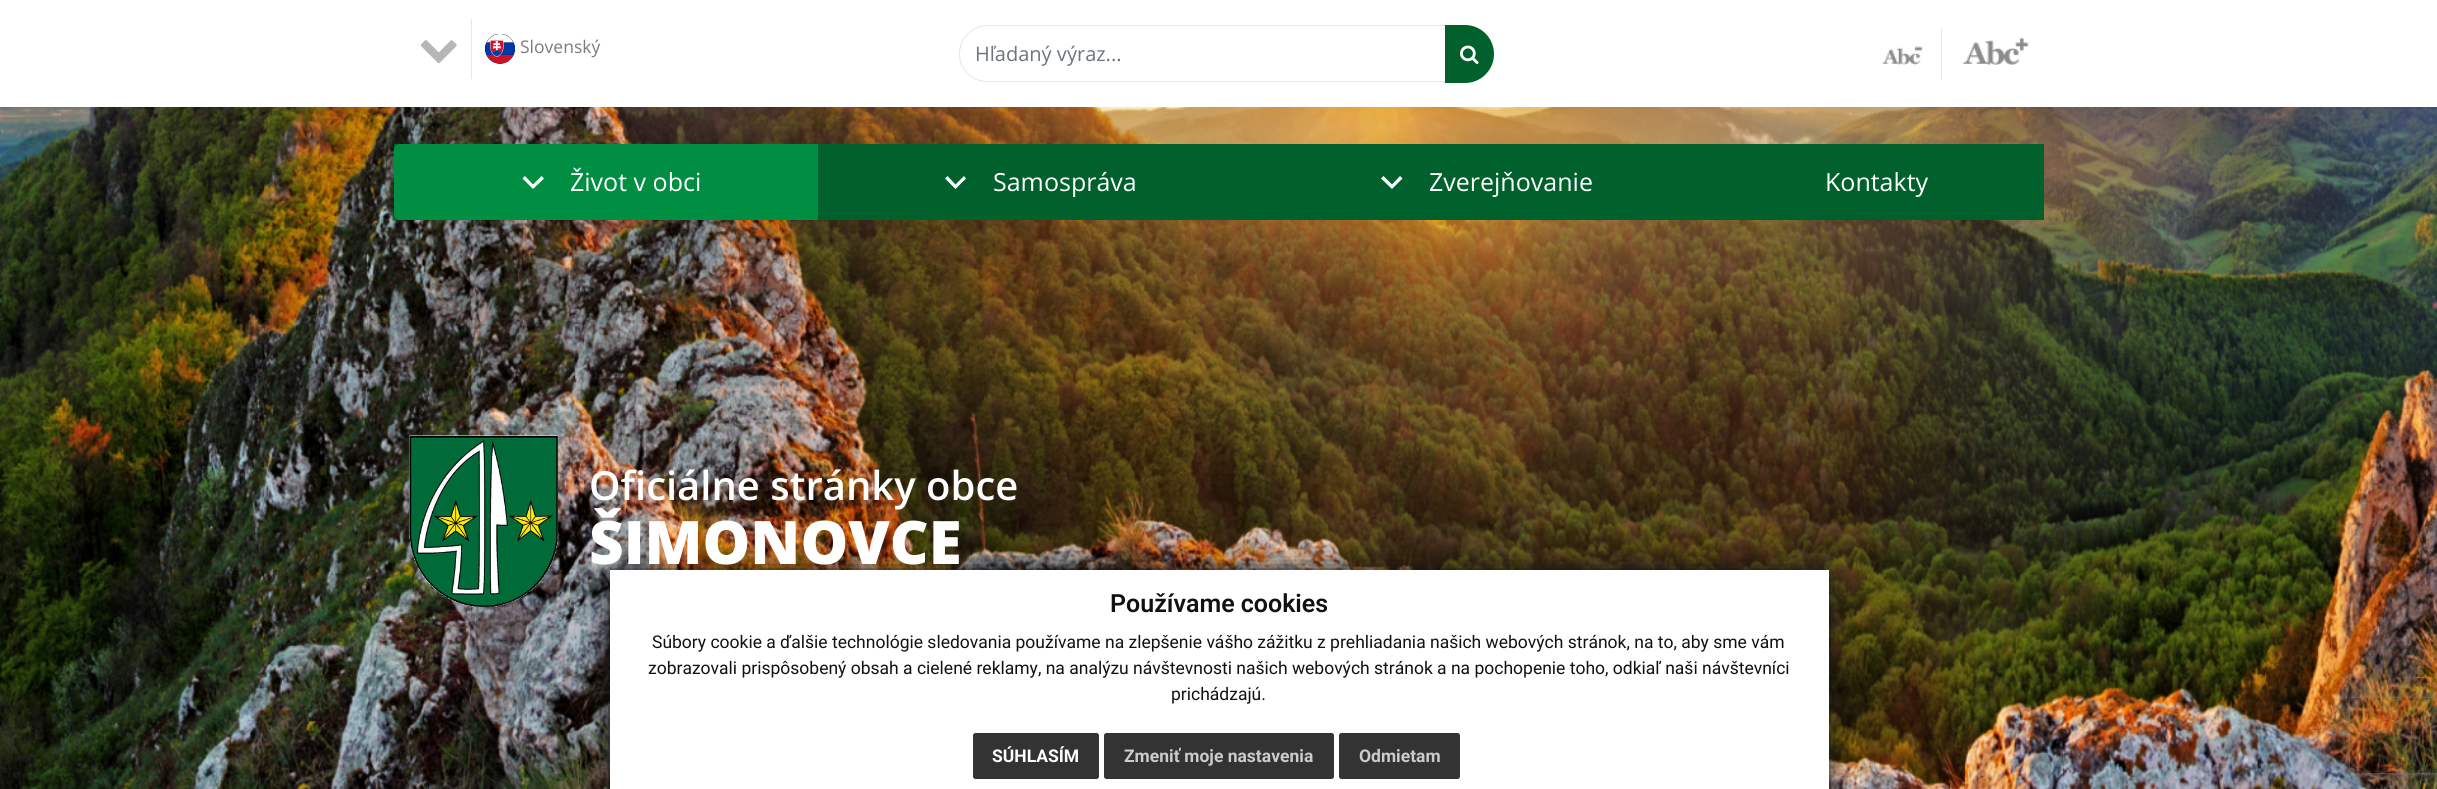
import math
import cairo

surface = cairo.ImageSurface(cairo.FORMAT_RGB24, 2437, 789)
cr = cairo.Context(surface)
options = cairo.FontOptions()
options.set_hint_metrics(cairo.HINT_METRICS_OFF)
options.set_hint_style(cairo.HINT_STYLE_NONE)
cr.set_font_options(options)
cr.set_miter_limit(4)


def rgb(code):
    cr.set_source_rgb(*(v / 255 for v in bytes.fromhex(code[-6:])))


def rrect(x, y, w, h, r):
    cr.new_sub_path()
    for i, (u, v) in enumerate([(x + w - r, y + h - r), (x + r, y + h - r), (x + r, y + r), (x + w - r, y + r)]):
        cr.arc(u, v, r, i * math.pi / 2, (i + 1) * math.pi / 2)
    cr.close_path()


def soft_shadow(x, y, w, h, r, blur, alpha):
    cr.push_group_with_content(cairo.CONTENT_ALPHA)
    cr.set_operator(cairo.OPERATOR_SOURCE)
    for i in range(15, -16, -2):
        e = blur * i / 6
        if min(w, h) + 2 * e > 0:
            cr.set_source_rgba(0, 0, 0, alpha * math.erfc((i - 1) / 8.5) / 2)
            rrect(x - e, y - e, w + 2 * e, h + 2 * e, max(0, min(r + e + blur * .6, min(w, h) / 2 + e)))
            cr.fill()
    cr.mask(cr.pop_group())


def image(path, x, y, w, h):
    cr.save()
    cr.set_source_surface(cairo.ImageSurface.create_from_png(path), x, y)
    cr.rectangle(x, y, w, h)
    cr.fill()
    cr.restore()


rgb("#ffffff")
cr.paint()
rgb("#e6e6e6")
cr.rectangle(471, 19, 1, 60)
cr.fill()
image("img/1.png", 420, 40, 37, 24)
image("img/2.png", 485, 34, 30, 30)
cr.set_fill_rule(cairo.FILL_RULE_EVEN_ODD)
cr.new_path()
cr.move_to(988, 25)
cr.line_to(1445, 25)
cr.line_to(1445, 82)
cr.line_to(988, 82)
cr.curve_to(972, 82, 959, 70, 959, 54)
cr.curve_to(959, 38, 972, 25, 988, 25)
cr.close_path()
cr.move_to(988, 26)
cr.line_to(1445, 26)
cr.line_to(1445, 81)
cr.line_to(988, 81)
cr.curve_to(972, 81, 960, 69, 960, 54)
cr.curve_to(960, 39, 972, 26, 988, 26)
cr.close_path()
cr.fill()
rgb("#00612d")
cr.new_path()
cr.move_to(1445, 25)
cr.line_to(1465, 25)
cr.curve_to(1481, 25, 1494, 38, 1494, 54)
cr.curve_to(1494, 70, 1481, 83, 1465, 83)
cr.line_to(1445, 83)
cr.close_path()
cr.fill()
image("img/3.png", 1460, 45, 19, 20)
image("img/4.png", 1882, 46, 41, 19)
rgb("#e6e6e6")
cr.rectangle(1941, 29, 1, 50)
cr.fill()
image("img/5.png", 1962, 37, 67, 28)
image("img/6.png", 0, 107, 2437, 682)
rgb("#00612d")
cr.rectangle(394, 144, 1650, 76)
cr.fill()
rgb("#008e42")
cr.new_path()
cr.move_to(400, 144)
cr.line_to(818, 144)
cr.line_to(818, 220)
cr.line_to(400, 220)
cr.curve_to(396.5, 220, 394, 217.5, 394, 214)
cr.line_to(394, 150)
cr.curve_to(394, 146.5, 396.5, 144, 400, 144)
cr.close_path()
cr.fill()
rgb("#ffffff")
cr.set_fill_rule(cairo.FILL_RULE_WINDING)
cr.new_path()
cr.move_to(541.5, 176)
cr.line_to(544, 178.5)
cr.line_to(533, 189)
cr.line_to(522.5, 178.5)
cr.line_to(525, 176)
cr.line_to(533, 184.5)
cr.close_path()
cr.fill()
cr.new_path()
cr.move_to(964, 176)
cr.line_to(966, 178.5)
cr.line_to(955.5, 189)
cr.line_to(945, 178.5)
cr.line_to(947.5, 176)
cr.line_to(955.5, 184.5)
cr.close_path()
cr.fill()
cr.new_path()
cr.move_to(1400, 176)
cr.line_to(1402.5, 178.5)
cr.line_to(1392, 189)
cr.line_to(1381, 178.5)
cr.line_to(1383.5, 176)
cr.line_to(1392, 184.5)
cr.close_path()
cr.fill()
image("img/7.png", 409, 435, 150, 173)
rgb("#111111")
soft_shadow(610, 570, 1219, 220, 0, 12.5, 1)
rgb("#ffffff")
cr.rectangle(610, 570, 1219, 219)
cr.fill()
rgb("#333333")
rrect(973, 733, 126, 46, 2.5)
cr.fill()
rrect(1104, 733, 230, 46, 2.5)
cr.fill()
rrect(1339, 733, 121, 46, 2.5)
cr.fill()
cr.save()
cr.set_fill_rule(cairo.FILL_RULE_EVEN_ODD)
cr.new_path()
cr.move_to(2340, 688)
cr.line_to(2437, 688)
cr.line_to(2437, 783)
cr.line_to(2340, 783)
cr.close_path()
cr.move_to(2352.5, 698)
cr.line_to(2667.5, 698)
cr.curve_to(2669, 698, 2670, 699, 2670, 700.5)
cr.line_to(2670, 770.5)
cr.curve_to(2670, 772, 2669, 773, 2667.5, 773)
cr.line_to(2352.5, 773)
cr.curve_to(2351, 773, 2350, 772, 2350, 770.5)
cr.line_to(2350, 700.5)
cr.curve_to(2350, 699, 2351, 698, 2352.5, 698)
cr.close_path()
cr.clip()
rgb("#808080")
soft_shadow(2350, 698, 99, 75, 2.5, 3, 1)
cr.restore()
cr.select_font_face("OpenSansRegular")
cr.set_font_size(17.5)
rgb("#7b7b7b")
cr.move_to(520, 53)
cr.show_text("Slovenský")
cr.set_font_size(20)
rgb("#6c757d")
cr.move_to(975, 61)
cr.show_text("Hľadaný výraz...")
cr.set_font_size(25)
rgb("#ffffff")
for x, y, s in [
    (570, 191, "Život v obci"),
    (993, 191, "Samospráva"),
    (1429, 191, "Zverejňovanie"),
    (1825, 191, "Kontakty"),
]:
    cr.move_to(x, y)
    cr.show_text(s)
cr.select_font_face("Open Sans SemiBold")
cr.set_font_size(40)
cr.move_to(589, 500)
cr.show_text("Oficiálne stránky obce")
cr.select_font_face("Open Sans ExtraBold")
cr.set_font_size(60)
cr.move_to(589, 564)
cr.show_text("ŠIMONOVCE")
cr.select_font_face("Roboto SemiBold")
cr.set_font_size(25)
rgb("#111111")
cr.move_to(1110, 612)
cr.show_text("Používame cookies")
cr.select_font_face("Roboto")
cr.set_font_size(17.5)
for x, y, s in [
    (652, 648, "Súbory cookie a ďalšie technológie sledovania používame na zlepšenie vášho zážitku z prehliadania našich webových stránok, na to, aby sme vám"),
    (648, 674, "zobrazovali prispôsobený obsah a cielené reklamy, na analýzu návštevnosti našich webových stránok a na pochopenie toho, odkiaľ naši návštevníci"),
    (1171, 700, "prichádzajú."),
]:
    cr.move_to(x, y)
    cr.show_text(s)
cr.select_font_face("Roboto", cairo.FONT_SLANT_NORMAL, cairo.FONT_WEIGHT_BOLD)
rgb("#ffffff")
cr.move_to(992, 762)
cr.show_text("SÚHLASÍM")
rgb("#cccccc")
cr.move_to(1124, 762)
cr.show_text("Zmeniť moje nastavenia")
cr.move_to(1359, 762)
cr.show_text("Odmietam")
surface.write_to_png("page.png")
